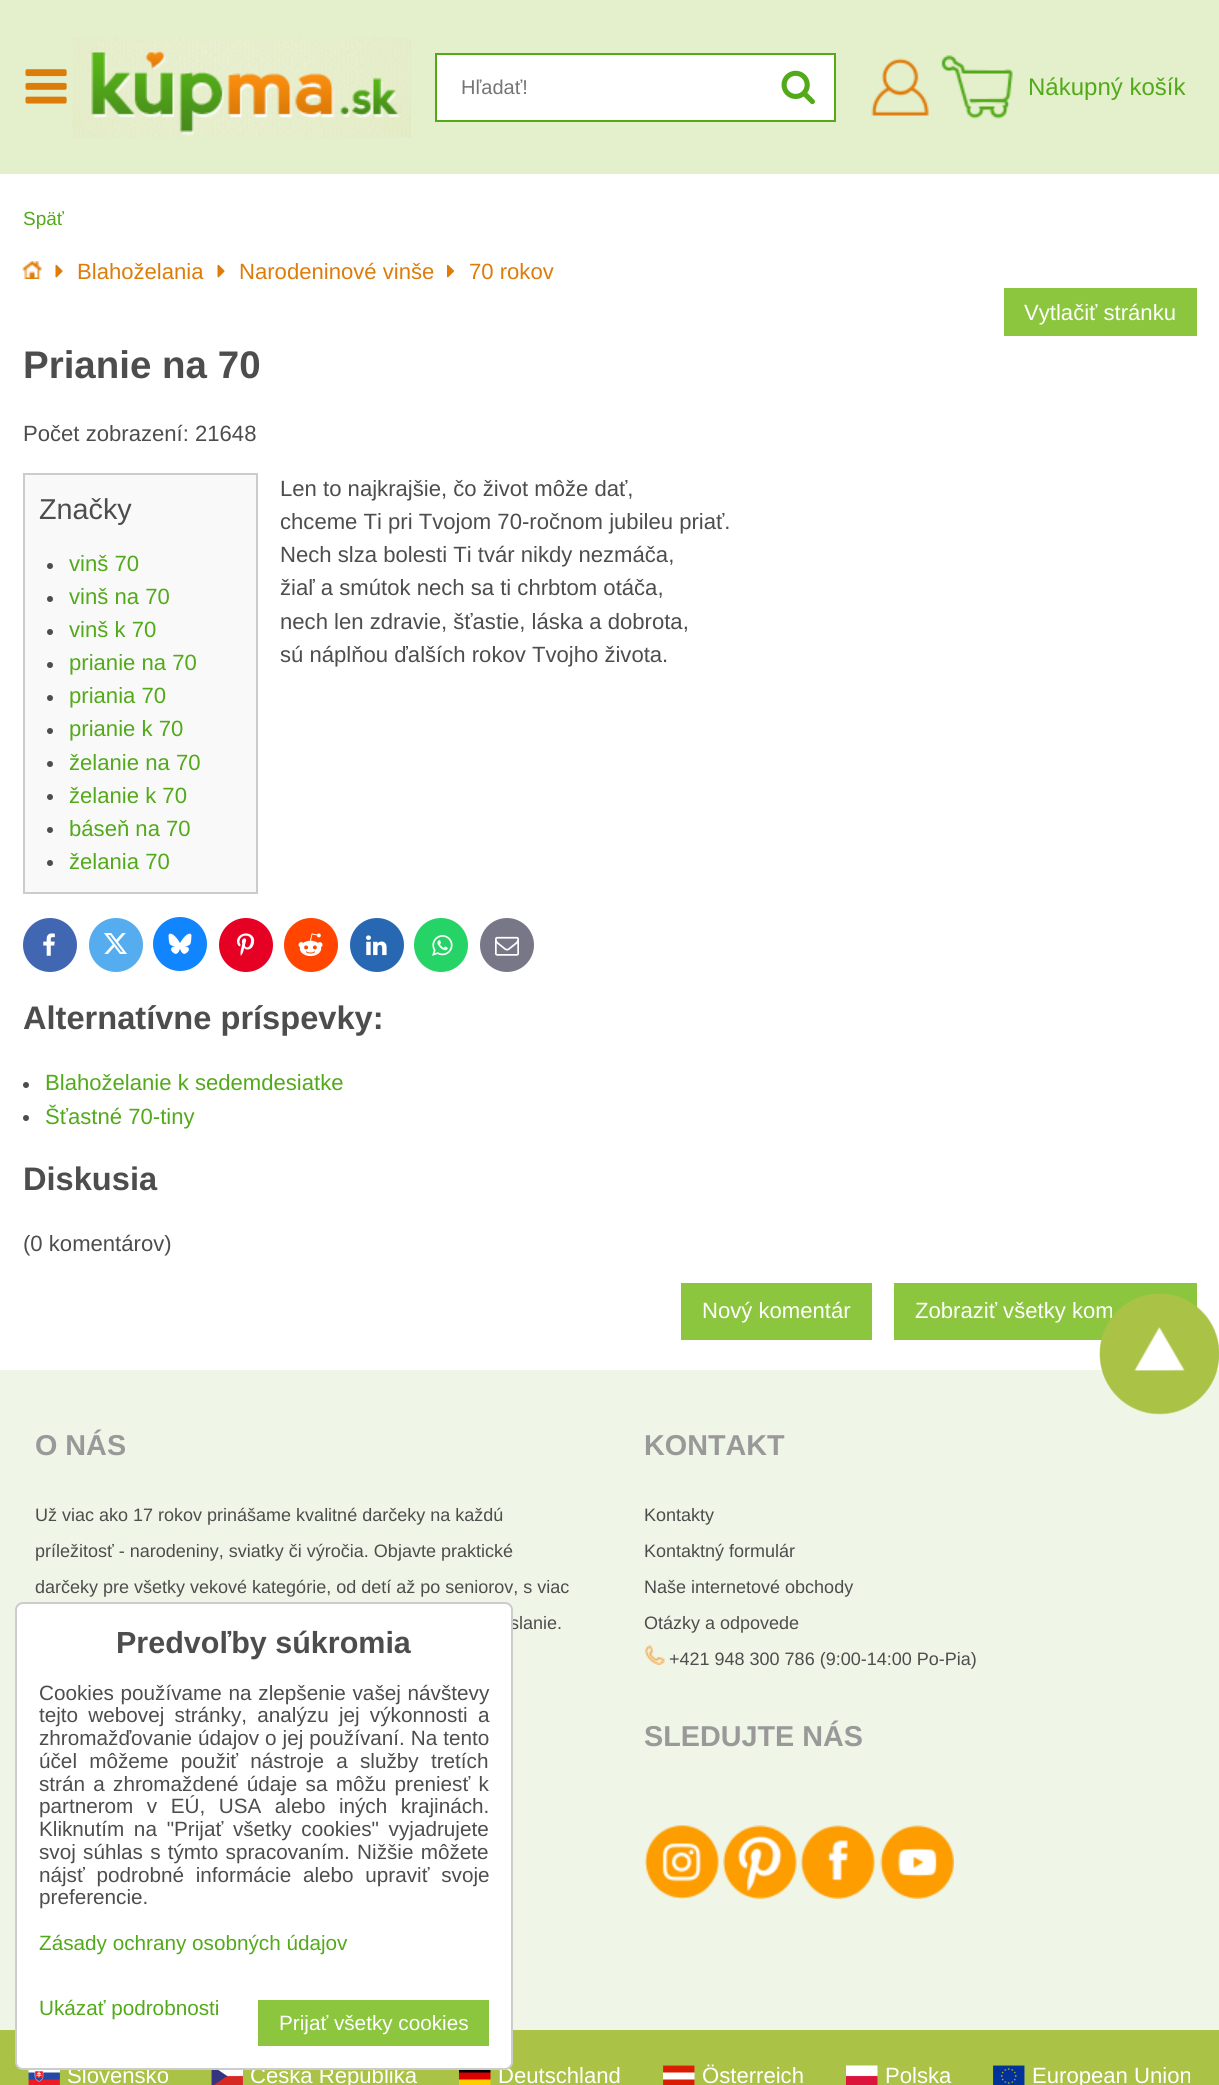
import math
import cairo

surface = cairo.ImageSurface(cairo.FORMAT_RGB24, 1219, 2085)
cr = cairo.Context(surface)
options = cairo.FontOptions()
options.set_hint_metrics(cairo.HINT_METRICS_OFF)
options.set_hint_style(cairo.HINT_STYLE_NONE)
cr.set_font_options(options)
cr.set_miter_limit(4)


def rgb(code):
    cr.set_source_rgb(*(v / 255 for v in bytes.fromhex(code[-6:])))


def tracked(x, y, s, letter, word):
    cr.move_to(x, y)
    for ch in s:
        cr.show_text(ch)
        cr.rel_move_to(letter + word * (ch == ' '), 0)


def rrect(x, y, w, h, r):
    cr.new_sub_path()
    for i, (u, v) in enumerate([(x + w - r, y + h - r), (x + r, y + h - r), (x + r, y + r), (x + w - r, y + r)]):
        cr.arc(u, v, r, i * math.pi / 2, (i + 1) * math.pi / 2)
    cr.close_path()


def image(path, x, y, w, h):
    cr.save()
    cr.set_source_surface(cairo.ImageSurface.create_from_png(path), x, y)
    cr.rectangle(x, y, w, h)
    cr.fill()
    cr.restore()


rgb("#ffffff")
cr.paint()
rgb("#e4efcc")
cr.rectangle(0, 0, 1219, 174)
cr.fill()
image("img/1.png", 25, 69, 42, 35)
image("img/2.png", 72, 37, 339, 101)
rgb("#ffffff")
cr.rectangle(436, 54, 399, 67)
cr.fill_preserve()
rgb("#52a919")
cr.stroke()
image("img/3.png", 781, 70, 34, 35)
image("img/4.png", 871, 58, 58, 58)
image("img/5.png", 941, 55, 72, 64)
image("img/6.png", 22, 261, 20, 18)
image("img/7.png", 55, 264, 8, 14)
image("img/7.png", 217, 264, 8, 14)
image("img/8.png", 447, 264, 7, 14)
rgb("#8cc63f")
cr.rectangle(1004, 288, 193, 48)
cr.fill()
rgb("#f9f9f9")
cr.rectangle(24, 474, 233, 419)
cr.fill_preserve()
rgb("#cccccc")
cr.stroke()
rgb("#4d4d4d")
cr.arc(50, 566, 3, 0, 2 * math.pi)
cr.fill()
cr.arc(50, 599, 3, 0, 2 * math.pi)
cr.fill()
cr.arc(50, 632, 3, 0, 2 * math.pi)
cr.fill()
cr.arc(50, 665, 3, 0, 2 * math.pi)
cr.fill()
cr.arc(50, 698, 3, 0, 2 * math.pi)
cr.fill()
cr.arc(50, 731, 3, 0, 2 * math.pi)
cr.fill()
cr.arc(50, 764, 3, 0, 2 * math.pi)
cr.fill()
cr.arc(50, 797, 3, 0, 2 * math.pi)
cr.fill()
cr.arc(50, 830, 3, 0, 2 * math.pi)
cr.fill()
cr.arc(50, 863, 3, 0, 2 * math.pi)
cr.fill()
rgb("#4267b2")
cr.arc(50, 945, 27, 0, 2 * math.pi)
cr.fill()
image("img/9.png", 43, 933, 12, 23)
rgb("#55acee")
cr.arc(116, 945, 27, 0, 2 * math.pi)
cr.fill()
image("img/10.png", 104, 933, 23, 21)
rgb("#1185fe")
cr.arc(180, 944, 27, 0, 2 * math.pi)
cr.fill()
image("img/11.png", 168, 933, 24, 21)
rgb("#e60023")
cr.arc(246, 945, 27, 0, 2 * math.pi)
cr.fill()
image("img/12.png", 237, 933, 18, 23)
rgb("#ff4500")
cr.arc(311, 945, 27, 0, 2 * math.pi)
cr.fill()
image("img/13.png", 298, 933, 25, 24)
rgb("#2867b2")
cr.arc(377, 945, 27, 0, 2 * math.pi)
cr.fill()
image("img/14.png", 366, 935, 21, 21)
rgb("#25d366")
cr.arc(441, 945, 27, 0, 2 * math.pi)
cr.fill()
image("img/15.png", 432, 935, 21, 21)
rgb("#777788")
cr.arc(507, 945, 27, 0, 2 * math.pi)
cr.fill()
image("img/16.png", 495, 936, 24, 20)
rgb("#4d4d4d")
cr.arc(26, 1085, 3, 0, 2 * math.pi)
cr.fill()
cr.arc(26, 1118, 3, 0, 2 * math.pi)
cr.fill()
for x, y, w, h, color in [
    (681, 1283, 191, 57, "#8cc63f"),
    (894, 1283, 303, 57, "#8cc63f"),
    (0, 1370, 1219, 660, "#eff5e7"),
]:
    rgb(color)
    cr.rectangle(x, y, w, h)
    cr.fill()
image("img/18.png", 645, 1645, 20, 20)
image("img/19.png", 645, 1825, 74, 74)
image("img/20.png", 723, 1825, 74, 74)
image("img/21.png", 801, 1825, 74, 74)
image("img/22.png", 880, 1825, 74, 74)
rgb("#aac346")
cr.rectangle(0, 2030, 1219, 55)
cr.fill()
image("img/23.png", 28, 2070, 32, 15)
image("img/24.png", 211, 2070, 32, 15)
image("img/25.png", 459, 2070, 32, 15)
image("img/26.png", 663, 2065, 32, 20)
image("img/27.png", 846, 2065, 32, 20)
image("img/28.png", 993, 2065, 32, 20)
cr.select_font_face("Liberation Sans")
cr.set_font_size(20)
rgb("#757575")
cr.move_to(461, 94)
cr.show_text("Hľadať!")
cr.set_font_size(24)
rgb("#52a919")
cr.move_to(1028, 95)
cr.show_text("Nákupný košík")
cr.set_font_size(19)
cr.move_to(23, 225)
cr.show_text("Späť")
cr.set_font_size(22.1)
rgb("#dd7c09")
for x, y, s in [
    (77, 279, "Blahoželania"),
    (239, 279, "Narodeninové vinše"),
    (469, 279, "70 rokov"),
]:
    cr.move_to(x, y)
    cr.show_text(s)
rgb("#ffffff")
cr.move_to(1024, 320)
cr.show_text("Vytlačiť stránku")
cr.select_font_face("Liberation Sans", cairo.FONT_SLANT_NORMAL, cairo.FONT_WEIGHT_BOLD)
cr.set_font_size(38.5)
rgb("#4d4d4d")
cr.move_to(23, 378)
cr.show_text("Prianie na 70")
cr.select_font_face("Liberation Sans")
cr.set_font_size(22.1)
cr.move_to(23, 441)
cr.show_text("Počet zobrazení: 21648")
cr.set_font_size(28.75)
cr.move_to(39, 519)
cr.show_text("Značky")
cr.set_font_size(22.1)
rgb("#52a919")
for x, y, s in [
    (69, 571, "vinš 70"),
    (69, 604, "vinš na 70"),
    (69, 637, "vinš k 70"),
    (69, 670, "prianie na 70"),
    (69, 703, "priania 70"),
    (69, 736, "prianie k 70"),
    (69, 770, "želanie na 70"),
    (69, 803, "želanie k 70"),
    (69, 836, "báseň na 70"),
    (69, 869, "želania 70"),
]:
    cr.move_to(x, y)
    cr.show_text(s)
rgb("#4d4d4d")
for x, y, s in [
    (280, 496, "Len to najkrajšie, čo život môže dať,"),
    (280, 529, "chceme Ti pri Tvojom 70-ročnom jubileu priať."),
    (280, 562, "Nech slza bolesti Ti tvár nikdy nezmáča,"),
    (280, 595, "žiaľ a smútok nech sa ti chrbtom otáča,"),
    (280, 629, "nech len zdravie, šťastie, láska a dobrota,"),
    (280, 662, "sú náplňou ďalších rokov Tvojho života."),
]:
    cr.move_to(x, y)
    cr.show_text(s)
cr.select_font_face("Liberation Sans", cairo.FONT_SLANT_NORMAL, cairo.FONT_WEIGHT_BOLD)
cr.set_font_size(32.6)
cr.move_to(23, 1029)
cr.show_text("Alternatívne príspevky:")
cr.select_font_face("Liberation Sans")
cr.set_font_size(22.1)
rgb("#52a919")
cr.move_to(45, 1090)
cr.show_text("Blahoželanie k sedemdesiatke")
cr.move_to(45, 1124)
cr.show_text("Šťastné 70-tiny")
cr.select_font_face("Liberation Sans", cairo.FONT_SLANT_NORMAL, cairo.FONT_WEIGHT_BOLD)
cr.set_font_size(32.6)
rgb("#4d4d4d")
cr.move_to(23, 1190)
cr.show_text("Diskusia")
cr.select_font_face("Liberation Sans")
cr.set_font_size(22.1)
cr.move_to(23, 1251)
cr.show_text("(0 komentárov)")
rgb("#ffffff")
cr.move_to(702, 1318)
cr.show_text("Nový komentár")
cr.move_to(915, 1318)
cr.show_text("Zobraziť všetky kom")
image("img/17.png", 1099, 1293, 120, 122)
cr.select_font_face("Liberation Sans", cairo.FONT_SLANT_NORMAL, cairo.FONT_WEIGHT_BOLD)
cr.set_font_size(28.75)
rgb("#999999")
cr.move_to(35, 1455)
cr.show_text("O NÁS")
cr.select_font_face("Liberation Sans")
cr.set_font_size(18)
rgb("#4d4d4d")
for x, y, s in [
    (35, 1521, "Už viac ako 17 rokov prinášame kvalitné darčeky na každú"),
    (35, 1557, "príležitosť - narodeniny, sviatky či výročia. Objavte praktické"),
    (35, 1593, "darčeky pre všetky vekové kategórie, od detí až po seniorov, s viac"),
    (510, 1629, "slanie."),
]:
    cr.move_to(x, y)
    cr.show_text(s)
cr.select_font_face("Liberation Sans", cairo.FONT_SLANT_NORMAL, cairo.FONT_WEIGHT_BOLD)
cr.set_font_size(28.75)
rgb("#999999")
cr.move_to(644, 1455)
cr.show_text("KONTAKT")
cr.select_font_face("Liberation Sans")
cr.set_font_size(18)
rgb("#4d4d4d")
for x, y, s in [
    (644, 1521, "Kontakty"),
    (644, 1557, "Kontaktný formulár"),
    (644, 1593, "Naše internetové obchody"),
    (644, 1629, "Otázky a odpovede"),
    (669, 1665, "+421 948 300 786 (9:00-14:00 Po-Pia)"),
]:
    cr.move_to(x, y)
    cr.show_text(s)
cr.select_font_face("Liberation Sans", cairo.FONT_SLANT_NORMAL, cairo.FONT_WEIGHT_BOLD)
cr.set_font_size(28.75)
rgb("#999999")
cr.move_to(644, 1746)
cr.show_text("SLEDUJTE NÁS")
cr.select_font_face("Liberation Sans")
cr.set_font_size(22.1)
rgb("#ffffff")
for x, y, s in [
    (67, 2083, "Slovensko"),
    (250, 2083, "Česká Republika"),
    (498, 2083, "Deutschland"),
    (702, 2083, "Österreich"),
    (885, 2083, "Polska"),
    (1032, 2083, "European Union"),
]:
    cr.move_to(x, y)
    cr.show_text(s)
rrect(16, 1603, 496, 466, 7)
cr.fill_preserve()
rgb("#cccccc")
cr.stroke()
cr.select_font_face("Liberation Sans", cairo.FONT_SLANT_NORMAL, cairo.FONT_WEIGHT_BOLD)
cr.set_font_size(30.5)
rgb("#4d4d4d")
cr.move_to(116, 1653)
cr.show_text("Predvoľby súkromia")
cr.select_font_face("Liberation Sans")
cr.set_font_size(20.7)
tracked(39, 1700, "Cookies používame na zlepšenie vašej návštevy", 0, 1)
tracked(39, 1722, "tejto webovej stránky, analýzu jej výkonnosti a", 0, 4.5)
tracked(39, 1745, "zhromažďovanie údajov o jej používaní. Na tento", 0, 0.25)
tracked(39, 1768, "účel môžeme použiť nástroje a služby tretích", 0, 6.5)
tracked(39, 1791, "strán a zhromaždené údaje sa môžu preniesť k", 0, 2.5)
tracked(39, 1813, "partnerom v EÚ, USA alebo iných krajinách.", 0, 7.75)
tracked(39, 1836, "Kliknutím na \"Prijať všetky cookies\" vyjadrujete", 0, 4)
tracked(39, 1859, "svoj súhlas s týmto spracovaním. Nižšie môžete", 0, 1.5)
tracked(39, 1882, "nájsť podrobné informácie alebo upraviť svoje", 0, 6)
cr.move_to(39, 1904)
cr.show_text("preferencie.")
rgb("#52a919")
cr.move_to(39, 1950)
cr.show_text("Zásady ochrany osobných údajov")
cr.move_to(39, 2015)
cr.show_text("Ukázať podrobnosti")
rgb("#8cc63f")
cr.rectangle(258, 2000, 231, 46)
cr.fill()
rgb("#ffffff")
cr.move_to(279, 2030)
cr.show_text("Prijať všetky cookies")
surface.write_to_png("page.png")
